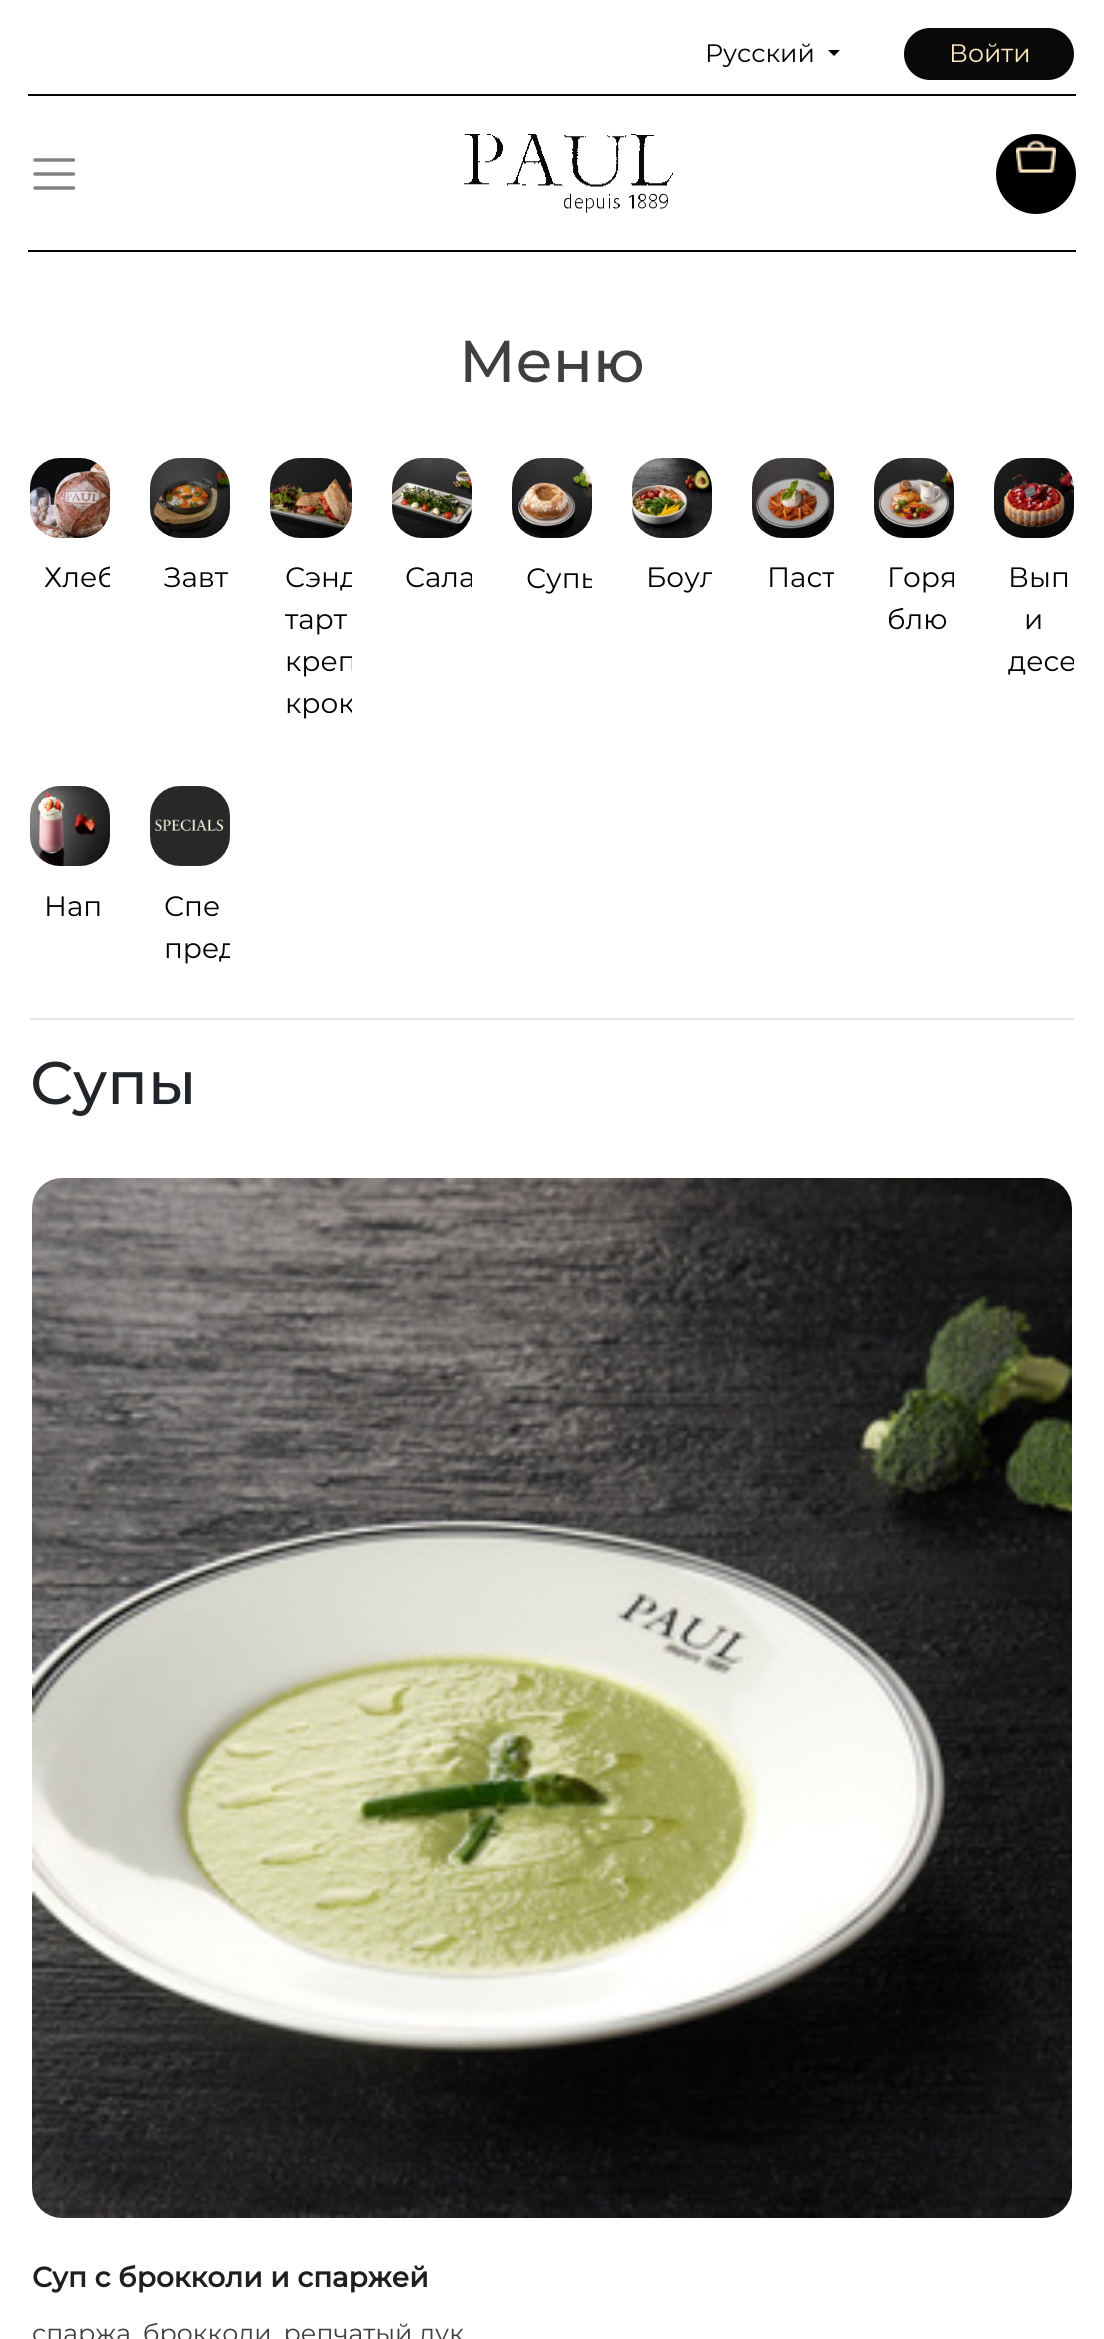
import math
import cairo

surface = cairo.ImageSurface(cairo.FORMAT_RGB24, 1104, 2339)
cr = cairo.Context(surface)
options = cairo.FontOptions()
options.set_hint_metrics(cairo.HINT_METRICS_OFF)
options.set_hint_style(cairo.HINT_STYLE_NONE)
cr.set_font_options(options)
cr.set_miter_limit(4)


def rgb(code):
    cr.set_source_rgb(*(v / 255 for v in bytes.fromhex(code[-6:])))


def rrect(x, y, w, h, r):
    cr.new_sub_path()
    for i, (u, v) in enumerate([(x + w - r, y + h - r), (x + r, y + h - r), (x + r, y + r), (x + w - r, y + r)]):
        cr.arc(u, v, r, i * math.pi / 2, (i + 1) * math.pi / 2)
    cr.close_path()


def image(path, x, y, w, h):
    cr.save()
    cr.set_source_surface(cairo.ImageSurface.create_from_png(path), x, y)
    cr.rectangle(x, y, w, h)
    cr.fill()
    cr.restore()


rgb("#ffffff")
cr.paint()
rgb("#000000")
cr.new_path()
cr.move_to(828, 50)
cr.line_to(840, 50)
cr.line_to(834, 56)
cr.close_path()
cr.fill()
rgb("#090909")
rrect(904, 28, 170, 52, 26)
cr.fill()
rgb("#000000")
cr.rectangle(28, 94, 1048, 2)
cr.fill()
cr.rectangle(28, 250, 1048, 2)
cr.fill()
cr.new_path()
cr.move_to(35, 160)
cr.line_to(73.5, 160)
cr.move_to(35, 174)
cr.line_to(73.5, 174)
cr.move_to(35, 188)
cr.line_to(73.5, 188)
rgb("#808080")
cr.set_line_width(3.5)
cr.set_line_cap(cairo.LINE_CAP_ROUND)
cr.stroke()
image("img/1.png", 464, 134, 209, 79)
rgb("#000000")
cr.arc(1036, 174, 40, 0, 2 * math.pi)
cr.fill()
image("img/2.png", 1016, 140, 40, 33)
image("img/3.png", 30, 458, 80, 80)
image("img/4.png", 150, 458, 80, 80)
image("img/5.png", 270, 458, 82, 80)
image("img/6.png", 392, 458, 80, 80)
image("img/7.png", 512, 458, 80, 80)
image("img/8.png", 632, 458, 80, 80)
image("img/9.png", 752, 458, 82, 80)
image("img/10.png", 874, 458, 80, 80)
image("img/11.png", 994, 458, 80, 80)
image("img/12.png", 30, 786, 80, 80)
image("img/13.png", 150, 786, 80, 80)
rgb("#e6e6e6")
cr.rectangle(30, 1018, 1044, 2)
cr.fill()
image("img/14.png", 32, 1178, 1040, 1040)
cr.select_font_face("Montserrat")
cr.set_font_size(25.25)
rgb("#000000")
cr.move_to(705, 62)
cr.show_text("Русский")
rgb("#ffe7c1")
cr.move_to(949, 62)
cr.show_text("Войти")
cr.select_font_face("Montserrat Medium")
cr.set_font_size(59)
rgb("#3f3f3f")
cr.move_to(459, 382)
cr.show_text("Меню")
cr.save()
cr.rectangle(30, 458, 80, 268)
cr.clip()
cr.select_font_face("Montserrat")
cr.set_font_size(28)
rgb("#000000")
cr.move_to(44, 587)
cr.show_text("Хлеб")
cr.restore()
cr.select_font_face("Montserrat")
cr.set_font_size(28)
rgb("#000000")
cr.move_to(164, 587)
cr.show_text("Завт")
cr.save()
cr.rectangle(270, 458, 82, 268)
cr.clip()
cr.move_to(285, 587)
cr.show_text("Сэнд")
cr.restore()
cr.move_to(285, 629)
cr.show_text("тарт")
cr.save()
cr.rectangle(270, 458, 82, 268)
cr.clip()
cr.move_to(285, 671)
cr.show_text("креп")
cr.move_to(285, 713)
cr.show_text("крок")
cr.restore()
cr.save()
cr.rectangle(392, 458, 80, 268)
cr.clip()
cr.move_to(405, 587)
cr.show_text("Сала")
cr.restore()
cr.save()
cr.rectangle(512, 458, 80, 268)
cr.clip()
cr.move_to(526, 588)
cr.show_text("Супы")
cr.restore()
cr.save()
cr.rectangle(632, 458, 80, 268)
cr.clip()
cr.move_to(646, 587)
cr.show_text("Боул")
cr.restore()
cr.save()
cr.rectangle(752, 458, 82, 268)
cr.clip()
cr.move_to(767, 587)
cr.show_text("Паст")
cr.restore()
cr.save()
cr.rectangle(874, 458, 80, 268)
cr.clip()
cr.move_to(887, 587)
cr.show_text("Горя")
cr.restore()
for x, y, s in [
    (887, 629, "блю"),
    (1008, 587, "Вып"),
    (1024, 629, "и"),
]:
    cr.move_to(x, y)
    cr.show_text(s)
cr.save()
cr.rectangle(994, 458, 80, 268)
cr.clip()
cr.move_to(1008, 671)
cr.show_text("десе")
cr.restore()
cr.move_to(44, 916)
cr.show_text("Нап")
cr.move_to(164, 916)
cr.show_text("Спе")
cr.save()
cr.rectangle(150, 786, 80, 184)
cr.clip()
cr.move_to(164, 958)
cr.show_text("прeд")
cr.restore()
cr.select_font_face("Montserrat Medium")
cr.set_font_size(60)
rgb("#212529")
cr.move_to(30, 1104)
cr.show_text("Супы")
cr.select_font_face("Montserrat", cairo.FONT_SLANT_NORMAL, cairo.FONT_WEIGHT_BOLD)
cr.set_font_size(28)
rgb("#201e1e")
cr.move_to(32, 2287)
cr.show_text("Суп с брокколи и спаржей")
cr.select_font_face("Montserrat")
cr.set_font_size(25.25)
rgb("#3f3f3f")
cr.move_to(32, 2342)
cr.show_text("спаржа, брокколи, репчатый лук")
surface.write_to_png("page.png")
